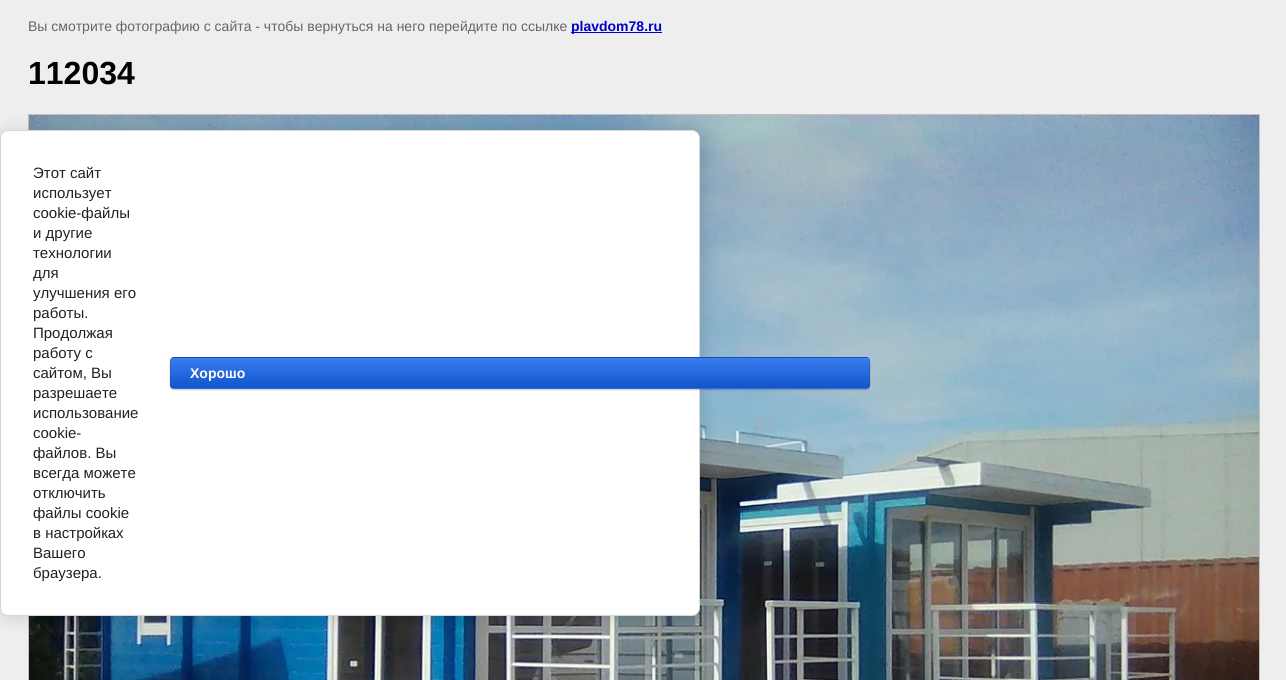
import math
import cairo

surface = cairo.ImageSurface(cairo.FORMAT_RGB24, 1286, 680)
cr = cairo.Context(surface)
options = cairo.FontOptions()
options.set_hint_metrics(cairo.HINT_METRICS_OFF)
options.set_hint_style(cairo.HINT_STYLE_NONE)
cr.set_font_options(options)
cr.set_miter_limit(4)


def rgb(code):
    cr.set_source_rgb(*(v / 255 for v in bytes.fromhex(code[-6:])))


def rrect(x, y, w, h, r):
    cr.new_sub_path()
    for i, (u, v) in enumerate([(x + w - r, y + h - r), (x + r, y + h - r), (x + r, y + r), (x + w - r, y + r)]):
        cr.arc(u, v, r, i * math.pi / 2, (i + 1) * math.pi / 2)
    cr.close_path()


def soft_shadow(x, y, w, h, r, blur, alpha):
    cr.push_group_with_content(cairo.CONTENT_ALPHA)
    cr.set_operator(cairo.OPERATOR_SOURCE)
    for i in range(15, -16, -2):
        e = blur * i / 6
        if min(w, h) + 2 * e > 0:
            cr.set_source_rgba(0, 0, 0, alpha * math.erfc((i - 1) / 8.5) / 2)
            rrect(x - e, y - e, w + 2 * e, h + 2 * e, max(0, min(r + e + blur * .6, min(w, h) / 2 + e)))
            cr.fill()
    cr.mask(cr.pop_group())


def image(path, x, y, w, h):
    cr.save()
    cr.set_source_surface(cairo.ImageSurface.create_from_png(path), x, y)
    cr.rectangle(x, y, w, h)
    cr.fill()
    cr.restore()


rgb("#eeeeee")
cr.paint()
rgb("#0000cc")
cr.rectangle(571, 32, 91, 1)
cr.fill()
cr.rectangle(28.5, 114.5, 1231, 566)
rgb("#c0c0c0")
cr.set_line_width(1)
cr.stroke()
image("img/1.png", 29, 115, 1230, 565)
rgb("#000000")
soft_shadow(2, 132, 700, 486, 8, 9, 0.14)
rgb("#ffffff")
rrect(0.5, 130.5, 699, 485, 7.5)
cr.fill_preserve()
rgb("#d6d6d6")
cr.stroke()
rgb("#000000")
soft_shadow(170, 358, 700, 32, 4, 0.5, 0.2)
cr.save()
rrect(170, 357, 700, 32, 4)
cr.clip()
gradient = cairo.LinearGradient(520, 328, 520, 358)
gradient.add_color_stop_rgba(0, 0.231, 0.486, 0.937, 1)
gradient.add_color_stop_rgba(1, 0.067, 0.333, 0.8, 1)
cr.set_source(gradient)
cr.rectangle(170, 357, 700, 1)
cr.fill()
gradient = cairo.LinearGradient(520, 358, 520, 388)
gradient.add_color_stop_rgba(0, 0.231, 0.486, 0.937, 1)
gradient.add_color_stop_rgba(1, 0.067, 0.333, 0.8, 1)
cr.set_source(gradient)
cr.rectangle(170, 358, 700, 30)
cr.fill()
gradient = cairo.LinearGradient(520, 388, 520, 418)
gradient.add_color_stop_rgba(0, 0.231, 0.486, 0.937, 1)
gradient.add_color_stop_rgba(1, 0.067, 0.333, 0.8, 1)
cr.set_source(gradient)
cr.rectangle(170, 388, 700, 1)
cr.fill()
cr.restore()
rrect(170.5, 357.5, 699, 31, 3.5)
cr.set_source_rgba(0, 0, 0, 0.1)
cr.stroke()
cr.select_font_face("Liberation Sans")
cr.set_font_size(14)
rgb("#666666")
cr.move_to(28, 31)
cr.show_text("Вы смотрите фотографию с сайта - чтобы вернуться на него перейдите по ссылке")
cr.select_font_face("Liberation Sans", cairo.FONT_SLANT_NORMAL, cairo.FONT_WEIGHT_BOLD)
rgb("#0000cc")
cr.move_to(571, 31)
cr.show_text("plavdom78.ru")
cr.set_font_size(32)
rgb("#000000")
cr.move_to(28, 84)
cr.show_text("112034")
cr.select_font_face("Liberation Sans")
cr.set_font_size(15)
rgb("#212121")
for x, y, s in [
    (33, 178, "Этот сайт"),
    (33, 198, "использует"),
    (33, 218, "cookie-файлы"),
    (33, 238, "и другие"),
    (33, 258, "технологии"),
    (33, 278, "для"),
    (33, 298, "улучшения его"),
    (33, 318, "работы."),
    (33, 338, "Продолжая"),
    (33, 358, "работу с"),
    (33, 378, "сайтом, Вы"),
    (33, 398, "разрешаете"),
    (33, 418, "использование"),
    (33, 438, "cookie-"),
    (33, 458, "файлов. Вы"),
    (33, 478, "всегда можете"),
    (33, 498, "отключить"),
    (33, 518, "файлы cookie"),
    (33, 538, "в настройках"),
    (33, 558, "Вашего"),
    (33, 578, "браузера."),
]:
    cr.move_to(x, y)
    cr.show_text(s)
cr.select_font_face("Liberation Sans", cairo.FONT_SLANT_NORMAL, cairo.FONT_WEIGHT_BOLD)
cr.set_font_size(14)
rgb("#ffffff")
cr.move_to(190, 378)
cr.show_text("Хорошо")
surface.write_to_png("page.png")
